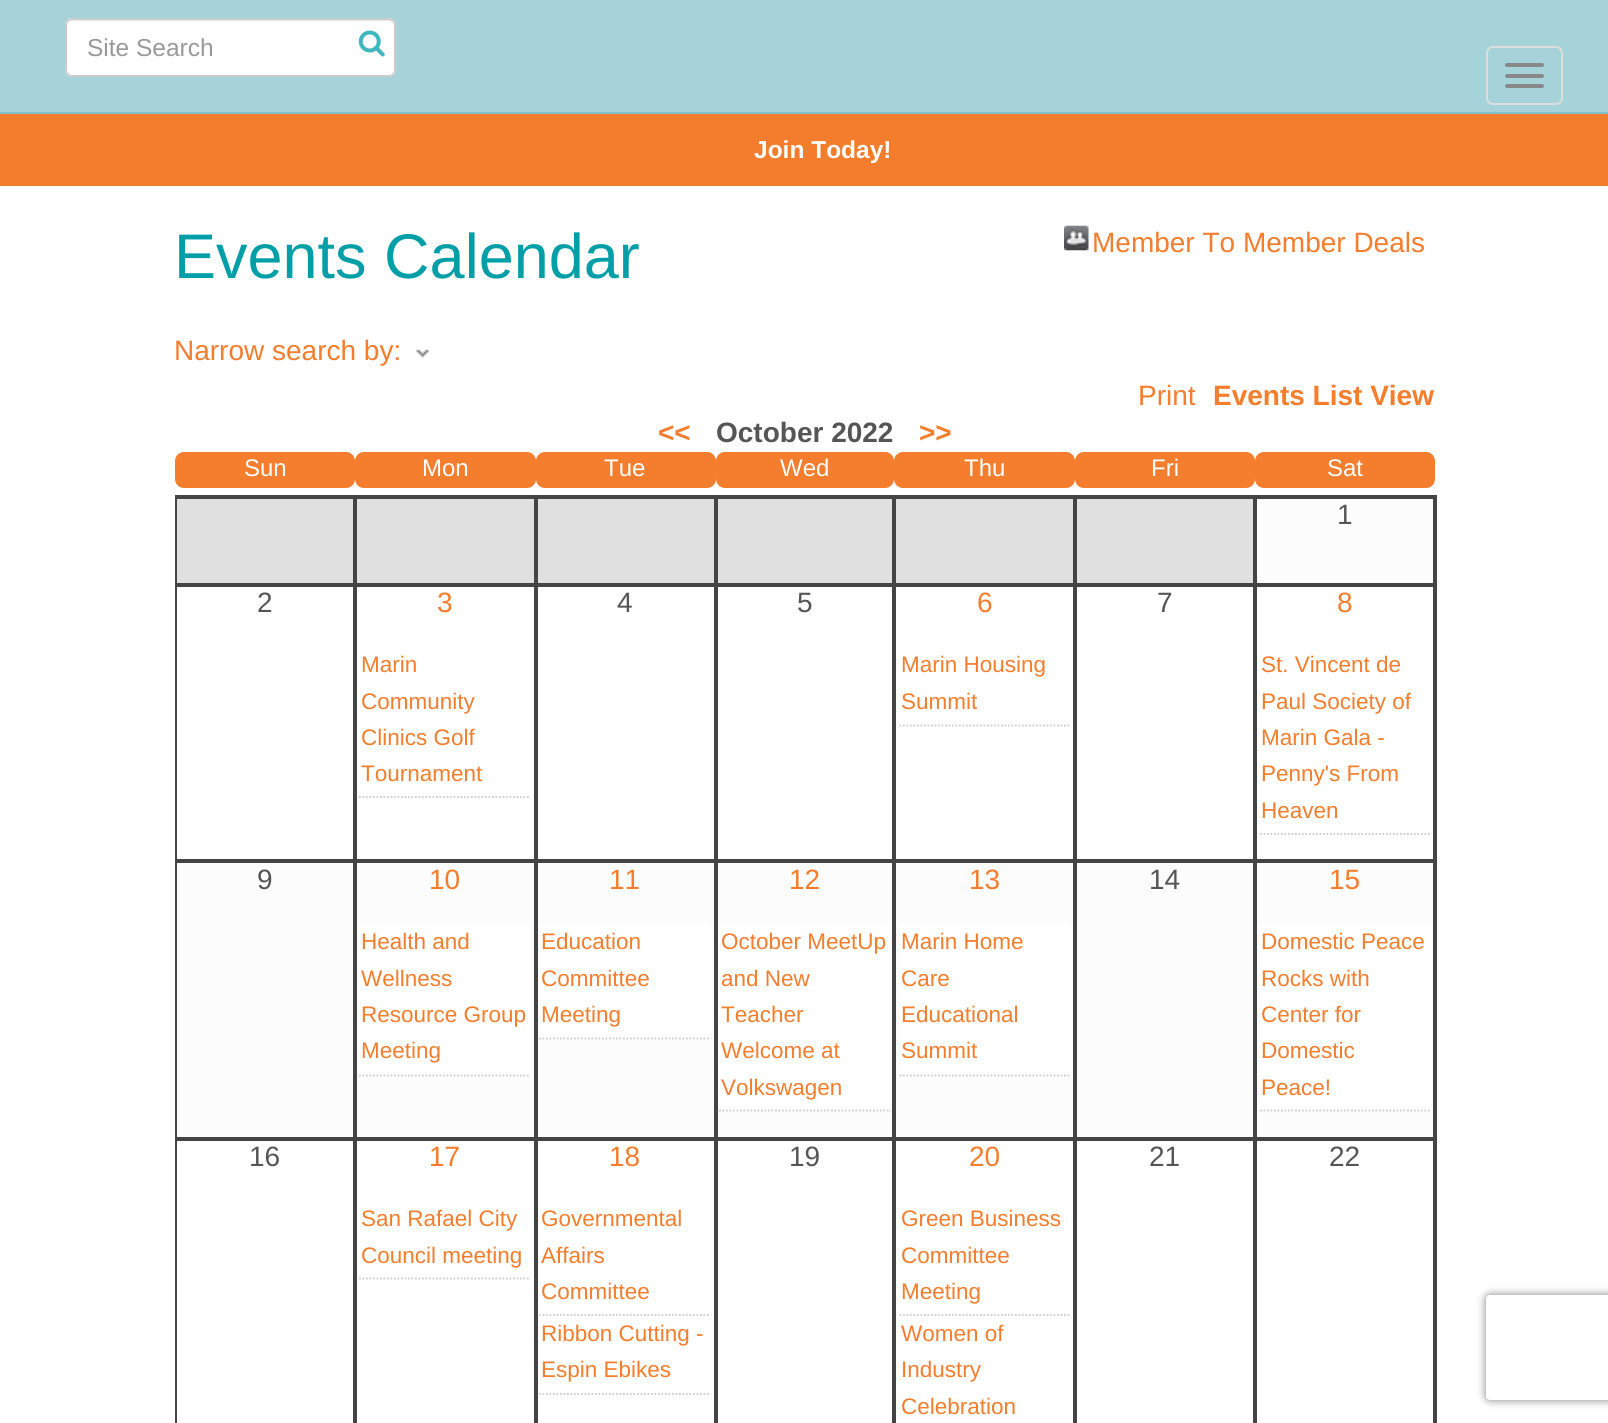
import math
import cairo

surface = cairo.ImageSurface(cairo.FORMAT_RGB24, 1608, 1423)
cr = cairo.Context(surface)
options = cairo.FontOptions()
options.set_hint_metrics(cairo.HINT_METRICS_OFF)
options.set_hint_style(cairo.HINT_STYLE_NONE)
cr.set_font_options(options)
cr.set_miter_limit(4)


def rgb(code):
    cr.set_source_rgb(*(v / 255 for v in bytes.fromhex(code[-6:])))


def rrect(x, y, w, h, r):
    cr.new_sub_path()
    for i, (u, v) in enumerate([(x + w - r, y + h - r), (x + r, y + h - r), (x + r, y + r), (x + w - r, y + r)]):
        cr.arc(u, v, r, i * math.pi / 2, (i + 1) * math.pi / 2)
    cr.close_path()


def soft_shadow(x, y, w, h, r, blur, alpha):
    cr.push_group_with_content(cairo.CONTENT_ALPHA)
    cr.set_operator(cairo.OPERATOR_SOURCE)
    for i in range(15, -16, -2):
        e = blur * i / 6
        if min(w, h) + 2 * e > 0:
            cr.set_source_rgba(0, 0, 0, alpha * math.erfc((i - 1) / 8.5) / 2)
            rrect(x - e, y - e, w + 2 * e, h + 2 * e, max(0, min(r + e + blur * .6, min(w, h) / 2 + e)))
            cr.fill()
    cr.mask(cr.pop_group())


def image(path, x, y, w, h):
    cr.save()
    cr.set_source_surface(cairo.ImageSurface.create_from_png(path), x, y)
    cr.rectangle(x, y, w, h)
    cr.fill()
    cr.restore()


rgb("#ffffff")
cr.paint()
rgb("#a6d3d9")
cr.rectangle(0, 0, 1608, 112)
cr.fill()
rgb("#82c1ca")
cr.rectangle(0, 112, 1608, 2)
cr.fill()
rgb("#ffffff")
rrect(65, 18, 331, 59, 7)
cr.fill()
rgb("#ececec")
cr.new_path()
cr.move_to(72, 21)
cr.line_to(388, 21)
cr.curve_to(391, 21, 394, 23, 394, 26)
cr.line_to(394, 24)
cr.curve_to(394, 21, 392, 19, 389, 19)
cr.line_to(72, 19)
cr.curve_to(70, 19, 67, 21, 67, 23)
cr.curve_to(68, 22, 70, 21, 72, 21)
cr.close_path()
cr.fill()
rrect(66, 19, 329, 57, 6)
rgb("#cccccc")
cr.stroke()
image("img/1.png", 358, 30, 27, 27)
rrect(1487, 47, 75, 57, 6)
rgb("#dddddd")
cr.stroke()
rgb("#888888")
rrect(1505, 63, 39, 4, 2)
cr.fill()
rrect(1505, 74, 39, 4, 2)
cr.fill()
rrect(1505, 84, 39, 4, 2)
cr.fill()
rgb("#f47d2d")
cr.rectangle(0, 114, 1608, 72)
cr.fill()
image("img/2.png", 1064, 225, 25, 26)
image("img/3.png", 416, 349, 14, 9)
rgb("#f47d2e")
rrect(175, 452, 180, 36, 9)
cr.fill()
rrect(355, 452, 181, 36, 9)
cr.fill()
rrect(536, 452, 180, 36, 9)
cr.fill()
rrect(716, 452, 178, 36, 9)
cr.fill()
rrect(894, 452, 181, 36, 9)
cr.fill()
rrect(1075, 452, 180, 36, 9)
cr.fill()
rrect(1255, 452, 180, 36, 9)
cr.fill()
rgb("#e0e0e0")
cr.rectangle(176, 498, 178, 86)
cr.fill_preserve()
rgb("#444444")
cr.stroke()
rgb("#e0e0e0")
cr.rectangle(356, 498, 179, 86)
cr.fill_preserve()
rgb("#444444")
cr.stroke()
rgb("#e0e0e0")
cr.rectangle(537, 498, 178, 86)
cr.fill_preserve()
rgb("#444444")
cr.stroke()
rgb("#e0e0e0")
cr.rectangle(717, 498, 176, 86)
cr.fill_preserve()
rgb("#444444")
cr.stroke()
rgb("#e0e0e0")
cr.rectangle(895, 498, 179, 86)
cr.fill_preserve()
rgb("#444444")
cr.stroke()
rgb("#e0e0e0")
cr.rectangle(1076, 498, 178, 86)
cr.fill_preserve()
rgb("#444444")
cr.stroke()
rgb("#fcfcfc")
cr.rectangle(1256, 498, 178, 86)
cr.fill_preserve()
rgb("#444444")
cr.stroke()
for x, y, w, h, color in [
    (175, 495, 1262, 2, "#444444"),
    (1435, 1138, 2, 285, "#444444"),
    (1435, 861, 2, 278, "#444444"),
    (1435, 583, 2, 280, "#444444"),
    (1435, 495, 2, 90, "#444444"),
]:
    rgb(color)
    cr.rectangle(x, y, w, h)
    cr.fill()
cr.rectangle(176, 586, 178, 274)
cr.stroke()
cr.rectangle(356, 586, 179, 274)
cr.stroke()
cr.new_path()
cr.move_to(359, 797)
cr.line_to(530, 797)
rgb("#cccccc")
cr.set_line_width(1.8)
cr.set_dash([1.75, 1.75])
cr.stroke()
cr.rectangle(537, 586, 178, 274)
rgb("#444444")
cr.set_line_width(2)
cr.set_dash([])
cr.stroke()
cr.rectangle(717, 586, 176, 274)
cr.stroke()
cr.rectangle(895, 586, 179, 274)
cr.stroke()
cr.new_path()
cr.move_to(899.5, 725.5)
cr.line_to(1071, 725.5)
rgb("#cccccc")
cr.set_line_width(1.8)
cr.set_dash([1.75, 1.75])
cr.stroke()
cr.rectangle(1076, 586, 178, 274)
rgb("#444444")
cr.set_line_width(2)
cr.set_dash([])
cr.stroke()
cr.rectangle(1256, 586, 178, 274)
cr.stroke()
cr.new_path()
cr.move_to(1260, 834)
cr.line_to(1431.5, 834)
rgb("#cccccc")
cr.set_line_width(1.8)
cr.set_dash([1.75, 1.75])
cr.stroke()
rgb("#fcfcfc")
cr.rectangle(177, 863, 1256, 274)
cr.fill()
cr.rectangle(176, 862, 178, 276)
rgb("#444444")
cr.set_line_width(2)
cr.set_dash([])
cr.stroke()
cr.rectangle(356, 862, 179, 276)
cr.stroke()
rgb("#ffffff")
cr.rectangle(359, 924, 171, 152)
cr.fill()
cr.new_path()
cr.move_to(359, 1075.5)
cr.line_to(530, 1075.5)
rgb("#cccccc")
cr.set_line_width(1.8)
cr.set_dash([1.75, 1.75])
cr.stroke()
cr.rectangle(537, 862, 178, 276)
rgb("#444444")
cr.set_line_width(2)
cr.set_dash([])
cr.stroke()
rgb("#ffffff")
cr.rectangle(539, 924, 172, 116)
cr.fill()
cr.new_path()
cr.move_to(539, 1038.5)
cr.line_to(710.5, 1038.5)
rgb("#cccccc")
cr.set_line_width(1.8)
cr.set_dash([1.75, 1.75])
cr.stroke()
cr.rectangle(717, 862, 176, 276)
rgb("#444444")
cr.set_line_width(2)
cr.set_dash([])
cr.stroke()
rgb("#ffffff")
cr.rectangle(719, 924, 172, 187)
cr.fill()
cr.new_path()
cr.move_to(719, 1110.5)
cr.line_to(891, 1110.5)
rgb("#cccccc")
cr.set_line_width(1.8)
cr.set_dash([1.75, 1.75])
cr.stroke()
cr.rectangle(895, 862, 179, 276)
rgb("#444444")
cr.set_line_width(2)
cr.set_dash([])
cr.stroke()
rgb("#ffffff")
cr.rectangle(900, 924, 171, 152)
cr.fill()
cr.new_path()
cr.move_to(899.5, 1075.5)
cr.line_to(1071, 1075.5)
rgb("#cccccc")
cr.set_line_width(1.8)
cr.set_dash([1.75, 1.75])
cr.stroke()
cr.rectangle(1076, 862, 178, 276)
rgb("#444444")
cr.set_line_width(2)
cr.set_dash([])
cr.stroke()
cr.rectangle(1256, 862, 178, 276)
cr.stroke()
rgb("#ffffff")
cr.rectangle(1260, 924, 172, 187)
cr.fill()
cr.new_path()
cr.move_to(1260, 1110.5)
cr.line_to(1431.5, 1110.5)
rgb("#cccccc")
cr.set_line_width(1.8)
cr.set_dash([1.75, 1.75])
cr.stroke()
cr.rectangle(176, 1140, 178, 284)
rgb("#444444")
cr.set_line_width(2)
cr.set_dash([])
cr.stroke()
cr.rectangle(356, 1140, 179, 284)
cr.stroke()
cr.new_path()
cr.move_to(359, 1278.5)
cr.line_to(530, 1278.5)
rgb("#cccccc")
cr.set_line_width(1.8)
cr.set_dash([1.75, 1.75])
cr.stroke()
cr.rectangle(537, 1140, 178, 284)
rgb("#444444")
cr.set_line_width(2)
cr.set_dash([])
cr.stroke()
cr.new_path()
cr.move_to(539, 1315)
cr.line_to(710.5, 1315)
rgb("#cccccc")
cr.set_line_width(1.8)
cr.set_dash([1.75, 1.75])
cr.stroke()
cr.new_path()
cr.move_to(539, 1394)
cr.line_to(710.5, 1394)
cr.stroke()
cr.rectangle(717, 1140, 176, 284)
rgb("#444444")
cr.set_line_width(2)
cr.set_dash([])
cr.stroke()
cr.rectangle(895, 1140, 179, 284)
cr.stroke()
cr.new_path()
cr.move_to(899.5, 1315)
cr.line_to(1071, 1315)
rgb("#cccccc")
cr.set_line_width(1.8)
cr.set_dash([1.75, 1.75])
cr.stroke()
cr.rectangle(1076, 1140, 178, 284)
rgb("#444444")
cr.set_line_width(2)
cr.set_dash([])
cr.stroke()
cr.rectangle(1256, 1140, 178, 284)
cr.stroke()
cr.save()
cr.set_fill_rule(cairo.FILL_RULE_EVEN_ODD)
cr.new_path()
cr.move_to(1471, 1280)
cr.line_to(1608, 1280)
cr.line_to(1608, 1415)
cr.line_to(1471, 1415)
cr.close_path()
cr.move_to(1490, 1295)
cr.line_to(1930, 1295)
cr.curve_to(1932, 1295, 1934, 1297, 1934, 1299)
cr.line_to(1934, 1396)
cr.curve_to(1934, 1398, 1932, 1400, 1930, 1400)
cr.line_to(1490, 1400)
cr.curve_to(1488, 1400, 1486, 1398, 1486, 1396)
cr.line_to(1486, 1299)
cr.curve_to(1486, 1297, 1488, 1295, 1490, 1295)
cr.close_path()
cr.clip()
rgb("#808080")
soft_shadow(1486, 1295, 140, 105, 4, 4.5, 1)
cr.restore()
cr.select_font_face("Liberation Sans")
cr.set_font_size(24.5)
rgb("#999999")
cr.move_to(87, 56)
cr.show_text("Site Search")
cr.select_font_face("Liberation Sans", cairo.FONT_SLANT_NORMAL, cairo.FONT_WEIGHT_BOLD)
rgb("#ffffff")
cr.move_to(754, 158)
cr.show_text("Join Today!")
cr.select_font_face("Liberation Sans")
cr.set_font_size(63)
rgb("#009fa8")
cr.move_to(174, 278)
cr.show_text("Events Calendar")
cr.set_font_size(28)
rgb("#f47d2e")
for x, y, s in [
    (1092, 252, "Member To Member Deals"),
    (174, 360, "Narrow search by:"),
    (1138, 405, "Print"),
]:
    cr.move_to(x, y)
    cr.show_text(s)
cr.select_font_face("Liberation Sans", cairo.FONT_SLANT_NORMAL, cairo.FONT_WEIGHT_BOLD)
cr.move_to(1213, 405)
cr.show_text("Events List View")
cr.move_to(658, 442)
cr.show_text("<<")
rgb("#555555")
cr.move_to(716, 442)
cr.show_text("October 2022")
rgb("#f47d2e")
cr.move_to(919, 442)
cr.show_text(">>")
cr.select_font_face("Liberation Sans")
cr.set_font_size(24)
rgb("#ffffff")
for x, y, s in [
    (244, 476, "Sun"),
    (422, 476, "Mon"),
    (604, 476, "Tue"),
    (780, 476, "Wed"),
    (964, 476, "Thu"),
    (1151, 476, "Fri"),
    (1327, 476, "Sat"),
]:
    cr.move_to(x, y)
    cr.show_text(s)
cr.set_font_size(28)
rgb("#555555")
cr.move_to(1337, 524)
cr.show_text("1")
cr.move_to(257, 612)
cr.show_text("2")
rgb("#f47d2e")
cr.move_to(437, 612)
cr.show_text("3")
cr.set_font_size(22.5)
for x, y, s in [
    (361, 672, "Marin"),
    (361, 709, "Community"),
    (361, 745, "Clinics Golf"),
    (361, 781, "Tournament"),
]:
    cr.move_to(x, y)
    cr.show_text(s)
cr.set_font_size(28)
rgb("#555555")
cr.move_to(617, 612)
cr.show_text("4")
cr.move_to(797, 612)
cr.show_text("5")
rgb("#f47d2e")
cr.move_to(977, 612)
cr.show_text("6")
cr.set_font_size(22.5)
cr.move_to(901, 672)
cr.show_text("Marin Housing")
cr.move_to(901, 709)
cr.show_text("Summit")
cr.set_font_size(28)
rgb("#555555")
cr.move_to(1157, 612)
cr.show_text("7")
rgb("#f47d2e")
cr.move_to(1337, 612)
cr.show_text("8")
cr.set_font_size(22.5)
for x, y, s in [
    (1261, 672, "St. Vincent de"),
    (1261, 709, "Paul Society of"),
    (1261, 745, "Marin Gala -"),
    (1261, 781, "Penny's From"),
    (1261, 818, "Heaven"),
]:
    cr.move_to(x, y)
    cr.show_text(s)
cr.set_font_size(28)
rgb("#555555")
cr.move_to(257, 889)
cr.show_text("9")
rgb("#f47d2e")
cr.move_to(429, 889)
cr.show_text("10")
cr.set_font_size(22.5)
for x, y, s in [
    (361, 949, "Health and"),
    (361, 986, "Wellness"),
    (361, 1022, "Resource Group"),
    (361, 1058, "Meeting"),
]:
    cr.move_to(x, y)
    cr.show_text(s)
cr.set_font_size(28)
cr.move_to(609, 889)
cr.show_text("11")
cr.set_font_size(22.5)
for x, y, s in [
    (541, 949, "Education"),
    (541, 986, "Committee"),
    (541, 1022, "Meeting"),
]:
    cr.move_to(x, y)
    cr.show_text(s)
cr.set_font_size(28)
cr.move_to(789, 889)
cr.show_text("12")
cr.set_font_size(22.5)
for x, y, s in [
    (721, 949, "October MeetUp"),
    (721, 986, "and New"),
    (721, 1022, "Teacher"),
    (721, 1058, "Welcome at"),
    (721, 1095, "Volkswagen"),
]:
    cr.move_to(x, y)
    cr.show_text(s)
cr.set_font_size(28)
cr.move_to(969, 889)
cr.show_text("13")
cr.set_font_size(22.5)
for x, y, s in [
    (901, 949, "Marin Home"),
    (901, 986, "Care"),
    (901, 1022, "Educational"),
    (901, 1058, "Summit"),
]:
    cr.move_to(x, y)
    cr.show_text(s)
cr.set_font_size(28)
rgb("#555555")
cr.move_to(1149, 889)
cr.show_text("14")
rgb("#f47d2e")
cr.move_to(1329, 889)
cr.show_text("15")
cr.set_font_size(22.5)
for x, y, s in [
    (1261, 949, "Domestic Peace"),
    (1261, 986, "Rocks with"),
    (1261, 1022, "Center for"),
    (1261, 1058, "Domestic"),
    (1261, 1095, "Peace!"),
]:
    cr.move_to(x, y)
    cr.show_text(s)
cr.set_font_size(28)
rgb("#555555")
cr.move_to(249, 1166)
cr.show_text("16")
rgb("#f47d2e")
cr.move_to(429, 1166)
cr.show_text("17")
cr.set_font_size(22.5)
cr.move_to(361, 1226)
cr.show_text("San Rafael City")
cr.move_to(361, 1263)
cr.show_text("Council meeting")
cr.set_font_size(28)
cr.move_to(609, 1166)
cr.show_text("18")
cr.set_font_size(22.5)
for x, y, s in [
    (541, 1226, "Governmental"),
    (541, 1263, "Affairs"),
    (541, 1299, "Committee"),
    (541, 1341, "Ribbon Cutting -"),
    (541, 1377, "Espin Ebikes"),
]:
    cr.move_to(x, y)
    cr.show_text(s)
cr.set_font_size(28)
rgb("#555555")
cr.move_to(789, 1166)
cr.show_text("19")
rgb("#f47d2e")
cr.move_to(969, 1166)
cr.show_text("20")
cr.set_font_size(22.5)
for x, y, s in [
    (901, 1226, "Green Business"),
    (901, 1263, "Committee"),
    (901, 1299, "Meeting"),
    (901, 1341, "Women of"),
    (901, 1377, "Industry"),
    (901, 1414, "Celebration"),
]:
    cr.move_to(x, y)
    cr.show_text(s)
cr.set_font_size(28)
rgb("#555555")
cr.move_to(1149, 1166)
cr.show_text("21")
cr.move_to(1329, 1166)
cr.show_text("22")
surface.write_to_png("page.png")
